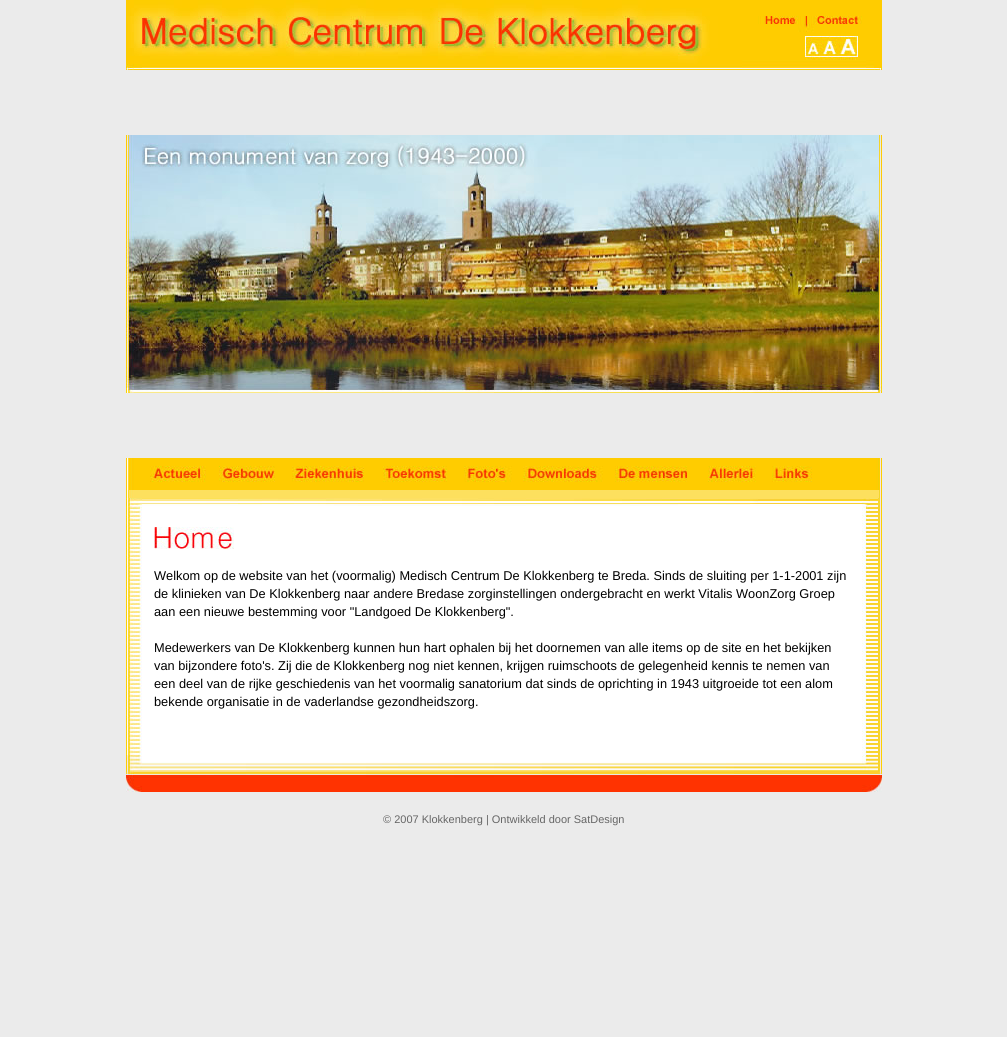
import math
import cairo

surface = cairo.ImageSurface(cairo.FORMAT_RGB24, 1007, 1037)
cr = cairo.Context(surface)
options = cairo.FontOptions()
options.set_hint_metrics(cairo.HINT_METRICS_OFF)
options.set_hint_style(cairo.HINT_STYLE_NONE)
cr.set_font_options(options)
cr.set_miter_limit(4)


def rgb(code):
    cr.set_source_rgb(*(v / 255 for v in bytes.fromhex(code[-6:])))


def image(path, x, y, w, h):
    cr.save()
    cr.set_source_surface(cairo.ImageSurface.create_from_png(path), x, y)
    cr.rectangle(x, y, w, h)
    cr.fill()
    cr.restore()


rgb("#ebebeb")
cr.paint()
image("img/1.png", 126, 0, 616, 70)
image("img/2.png", 742, 0, 140, 36)
image("img/3.png", 742, 36, 63, 34)
image("img/4.png", 805, 36, 16, 34)
image("img/5.png", 821, 36, 17, 34)
image("img/6.png", 838, 36, 20, 34)
image("img/7.png", 858, 36, 24, 34)
image("img/8.png", 126, 135, 756, 258)
image("img/9.png", 126, 458, 85, 32)
image("img/10.png", 211, 458, 73, 32)
image("img/11.png", 284, 458, 91, 32)
image("img/12.png", 375, 458, 81, 32)
image("img/13.png", 456, 458, 59, 32)
image("img/14.png", 515, 458, 92, 32)
image("img/15.png", 607, 458, 93, 32)
image("img/16.png", 700, 458, 64, 32)
image("img/17.png", 764, 458, 118, 32)
image("img/18.png", 126, 490, 756, 19)
image("img/19.png", 126, 509, 756, 246)
image("img/20.png", 154, 527, 80, 22)
image("img/21.png", 126, 755, 756, 37)
cr.select_font_face("Liberation Sans")
cr.set_font_size(12.8)
rgb("#000000")
for x, y, s in [
    (154, 580, "Welkom op de website van het (voormalig) Medisch Centrum De Klokkenberg te Breda. Sinds de sluiting per 1-1-2001 zijn"),
    (154, 598, "de klinieken van De Klokkenberg naar andere Bredase zorginstellingen ondergebracht en werkt Vitalis WoonZorg Groep"),
    (154, 616, "aan een nieuwe bestemming voor \"Landgoed De Klokkenberg\"."),
    (154, 652, "Medewerkers van De Klokkenberg kunnen hun hart ophalen bij het doornemen van alle items op de site en het bekijken"),
    (154, 670, "van bijzondere foto's. Zij die de Klokkenberg nog niet kennen, krijgen ruimschoots de gelegenheid kennis te nemen van"),
    (154, 688, "een deel van de rijke geschiedenis van het voormalig sanatorium dat sinds de oprichting in 1943 uitgroeide tot een alom"),
    (154, 706, "bekende organisatie in de vaderlandse gezondheidszorg."),
]:
    cr.move_to(x, y)
    cr.show_text(s)
cr.set_font_size(11)
rgb("#666666")
cr.move_to(383, 823)
cr.show_text("© 2007 Klokkenberg | Ontwikkeld door SatDesign")
surface.write_to_png("page.png")
